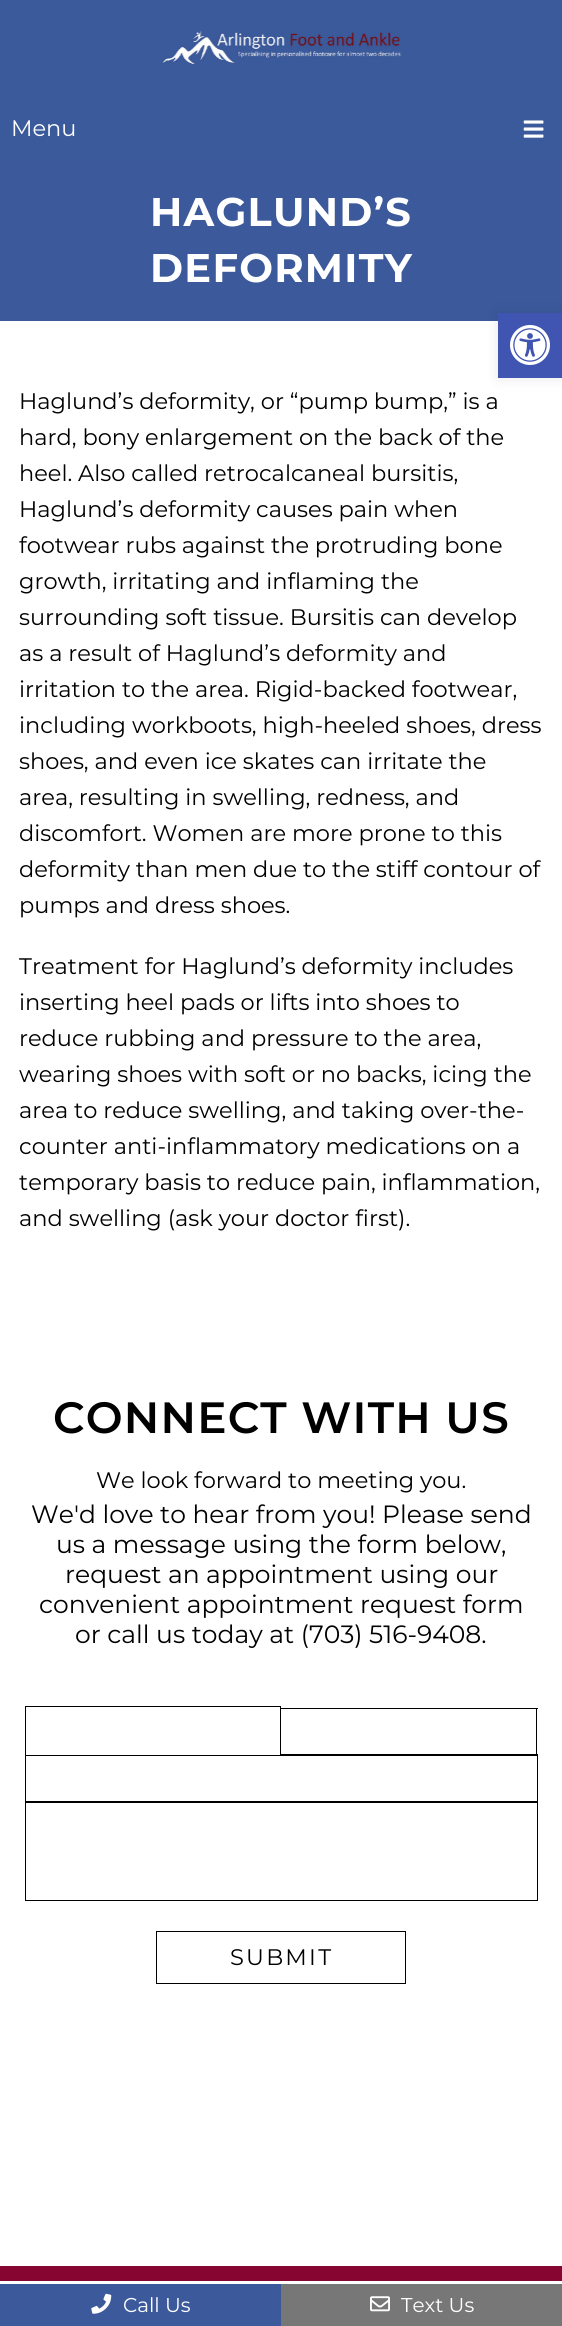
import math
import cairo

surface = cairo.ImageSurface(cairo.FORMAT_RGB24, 562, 2326)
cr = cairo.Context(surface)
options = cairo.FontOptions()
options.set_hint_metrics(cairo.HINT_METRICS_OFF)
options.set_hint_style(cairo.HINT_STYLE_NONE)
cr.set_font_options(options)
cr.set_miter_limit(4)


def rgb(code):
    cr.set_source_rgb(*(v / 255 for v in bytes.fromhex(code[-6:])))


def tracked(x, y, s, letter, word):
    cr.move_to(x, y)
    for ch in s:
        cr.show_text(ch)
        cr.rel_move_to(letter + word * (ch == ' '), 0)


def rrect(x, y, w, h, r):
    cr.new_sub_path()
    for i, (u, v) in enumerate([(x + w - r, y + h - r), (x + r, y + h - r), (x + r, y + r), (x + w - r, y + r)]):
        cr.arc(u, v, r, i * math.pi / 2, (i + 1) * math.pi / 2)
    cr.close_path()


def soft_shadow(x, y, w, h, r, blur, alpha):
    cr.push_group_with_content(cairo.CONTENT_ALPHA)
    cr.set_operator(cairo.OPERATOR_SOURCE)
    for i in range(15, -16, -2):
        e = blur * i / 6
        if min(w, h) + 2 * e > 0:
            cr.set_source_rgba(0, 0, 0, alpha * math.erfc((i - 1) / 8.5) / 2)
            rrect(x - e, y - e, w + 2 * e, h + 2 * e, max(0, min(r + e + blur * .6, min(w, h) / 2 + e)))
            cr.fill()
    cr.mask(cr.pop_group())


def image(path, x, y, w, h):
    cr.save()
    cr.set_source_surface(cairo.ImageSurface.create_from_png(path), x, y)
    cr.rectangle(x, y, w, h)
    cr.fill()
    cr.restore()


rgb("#ffffff")
cr.paint()
rgb("#3b5a9b")
cr.rectangle(0, 0, 562, 160)
cr.fill()
image("img/1.png", 162, 31, 240, 34)
image("img/2.png", 523, 120, 21, 18)
rgb("#3b599b")
cr.rectangle(0, 160, 562, 161)
cr.fill()
cr.rectangle(25.5, 1706.5, 255, 49)
rgb("#000000")
cr.set_line_width(1)
cr.stroke()
for x, y, w, h, color in [
    (281, 1708, 257, 1, "#000000"),
    (536, 1708, 1, 47, "#000000"),
    (281, 1754, 257, 1, "#000000"),
]:
    rgb(color)
    cr.rectangle(x, y, w, h)
    cr.fill()
cr.rectangle(25.5, 1755.5, 512, 47)
cr.stroke()
cr.rectangle(25.5, 1801.5, 512, 99)
cr.stroke()
cr.rectangle(156.5, 1931.5, 249, 52)
cr.stroke()
rgb("#870531")
cr.rectangle(0, 2266, 562, 15)
cr.fill()
rgb("#000000")
soft_shadow(498, 313, 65, 65, 0, 6, 0.1)
rgb("#4054b2")
cr.rectangle(498, 313, 64, 65)
cr.fill()
image("img/3.png", 510, 325, 40, 40)
rgb("#3b599b")
cr.rectangle(0, 2284, 281, 42)
cr.fill()
image("img/4.png", 91, 2293, 21, 21)
rgb("#777777")
cr.rectangle(281, 2284, 281, 42)
cr.fill()
image("img/5.png", 370, 2296, 20, 16)
cr.select_font_face("Montserrat")
cr.set_font_size(22.5)
rgb("#ffffff")
cr.move_to(11, 136)
cr.show_text("Menu")
cr.select_font_face("Montserrat", cairo.FONT_SLANT_NORMAL, cairo.FONT_WEIGHT_BOLD)
cr.set_font_size(40)
tracked(150, 226, "HAGLUND’S", 1.25, 0)
tracked(150, 282, "DEFORMITY", 1.25, 0)
cr.select_font_face("Montserrat")
cr.set_font_size(22.5)
rgb("#000000")
for x, y, s in [
    (19, 409, "Haglund’s deformity, or “pump bump,” is a"),
    (19, 445, "hard, bony enlargement on the back of the"),
    (19, 481, "heel. Also called retrocalcaneal bursitis,"),
    (19, 517, "Haglund’s deformity causes pain when"),
    (19, 553, "footwear rubs against the protruding bone"),
    (19, 589, "growth, irritating and inflaming the"),
    (19, 625, "surrounding soft tissue. Bursitis can develop"),
    (19, 661, "as a result of Haglund’s deformity and"),
    (19, 697, "irritation to the area. Rigid-backed footwear,"),
    (19, 733, "including workboots, high-heeled shoes, dress"),
    (19, 769, "shoes, and even ice skates can irritate the"),
    (19, 805, "area, resulting in swelling, redness, and"),
    (19, 841, "discomfort. Women are more prone to this"),
    (19, 877, "deformity than men due to the stiff contour of"),
    (19, 913, "pumps and dress shoes."),
    (19, 974, "Treatment for Haglund’s deformity includes"),
    (19, 1010, "inserting heel pads or lifts into shoes to"),
    (19, 1046, "reduce rubbing and pressure to the area,"),
    (19, 1082, "wearing shoes with soft or no backs, icing the"),
    (19, 1118, "area to reduce swelling, and taking over-the-"),
    (19, 1154, "counter anti-inflammatory medications on a"),
    (19, 1190, "temporary basis to reduce pain, inflammation,"),
    (19, 1226, "and swelling (ask your doctor first)."),
]:
    cr.move_to(x, y)
    cr.show_text(s)
cr.select_font_face("Montserrat SemiBold")
cr.set_font_size(43.75)
tracked(53, 1433, "CONNECT WITH US", 1.25, 0)
cr.select_font_face("Montserrat")
cr.set_font_size(22.5)
cr.move_to(96, 1488)
cr.show_text("We look forward to meeting you.")
cr.set_font_size(25)
for x, y, s in [
    (31, 1523, "We'd love to hear from you! Please send"),
    (56, 1553, "us a message using the form below,"),
    (65, 1583, "request an appointment using our"),
    (39, 1613, "convenient appointment request form"),
    (75, 1643, "or call us today at (703) 516-9408."),
]:
    cr.move_to(x, y)
    cr.show_text(s)
cr.set_font_size(22.5)
tracked(230, 1965, "SUBMIT", 2.25, 0)
cr.set_font_size(20)
rgb("#ffffff")
cr.move_to(123, 2312)
cr.show_text("Call Us")
cr.move_to(401, 2312)
cr.show_text("Text Us")
surface.write_to_png("page.png")
